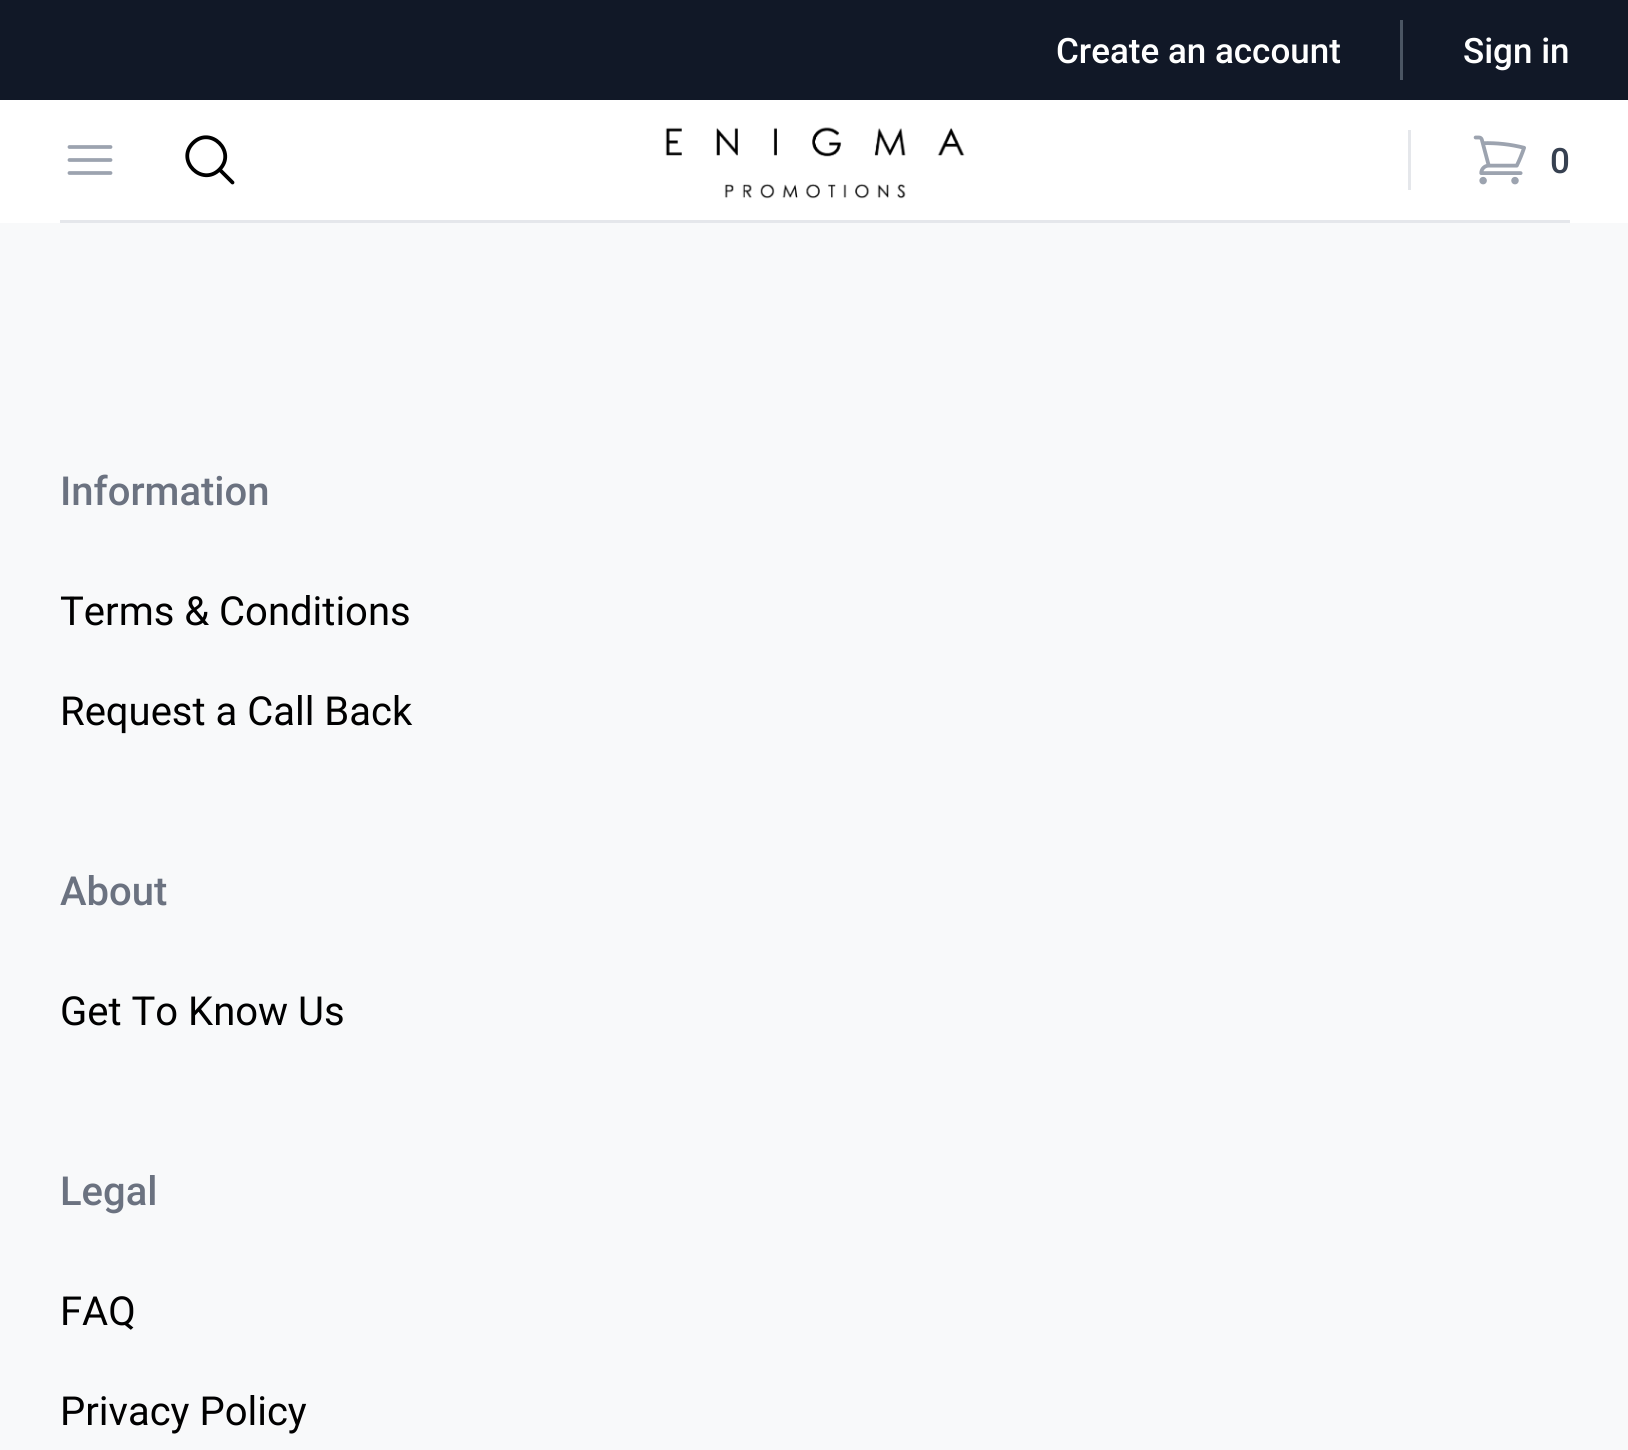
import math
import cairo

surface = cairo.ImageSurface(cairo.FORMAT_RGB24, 1628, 1450)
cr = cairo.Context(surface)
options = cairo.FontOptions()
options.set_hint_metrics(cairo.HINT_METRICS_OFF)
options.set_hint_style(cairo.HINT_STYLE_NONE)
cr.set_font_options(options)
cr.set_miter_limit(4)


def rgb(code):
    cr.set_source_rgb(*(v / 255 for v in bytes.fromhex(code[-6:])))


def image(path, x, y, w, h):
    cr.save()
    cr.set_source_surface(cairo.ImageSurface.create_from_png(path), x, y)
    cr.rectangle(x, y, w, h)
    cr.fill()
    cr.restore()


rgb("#ffffff")
cr.paint()
for x, y, w, h, color in [
    (0, 0, 1628, 100, "#111827"),
    (1400, 20, 3, 60, "#4b5563"),
    (60, 220, 1510, 3, "#e5e7eb"),
]:
    rgb(color)
    cr.rectangle(x, y, w, h)
    cr.fill()
cr.new_path()
cr.move_to(69.5, 147)
cr.line_to(110.5, 147)
cr.move_to(69.5, 160)
cr.line_to(110.5, 160)
cr.move_to(69.5, 173)
cr.line_to(110.5, 173)
rgb("#9ca3af")
cr.set_line_width(3.8)
cr.set_line_cap(cairo.LINE_CAP_ROUND)
cr.set_line_join(cairo.LINE_JOIN_ROUND)
cr.stroke()
cr.new_path()
cr.move_to(232.5, 182.5)
cr.line_to(219.5, 169.5)
cr.move_to(219.5, 169.5)
cr.curve_to(237, 152, 210.5, 125.5, 193, 143)
cr.curve_to(175.5, 160.5, 202, 187, 219.5, 169.5)
cr.close_path()
rgb("#000000")
cr.stroke()
image("img/1.png", 665, 127, 300, 72)
rgb("#e5e7eb")
cr.rectangle(1408, 130, 3, 60)
cr.fill()
image("img/2.png", 1473, 135, 53, 50)
rgb("#f8f9fa")
cr.rectangle(0, 223, 1628, 1227)
cr.fill()
cr.select_font_face("Roboto Medium")
cr.set_font_size(35)
rgb("#ffffff")
cr.move_to(1056, 63)
cr.show_text("Create an account")
cr.move_to(1463, 63)
cr.show_text("Sign in")
rgb("#374151")
cr.move_to(1550, 173)
cr.show_text("0")
cr.set_font_size(40)
rgb("#6b7280")
cr.move_to(60, 505)
cr.show_text("Information")
cr.select_font_face("Roboto")
rgb("#000000")
cr.move_to(60, 625)
cr.show_text("Terms & Conditions")
cr.move_to(60, 725)
cr.show_text("Request a Call Back")
cr.select_font_face("Roboto Medium")
rgb("#6b7280")
cr.move_to(60, 905)
cr.show_text("About")
cr.select_font_face("Roboto")
rgb("#000000")
cr.move_to(60, 1025)
cr.show_text("Get To Know Us")
cr.select_font_face("Roboto Medium")
rgb("#6b7280")
cr.move_to(60, 1205)
cr.show_text("Legal")
cr.select_font_face("Roboto")
rgb("#000000")
cr.move_to(60, 1325)
cr.show_text("FAQ")
cr.move_to(60, 1425)
cr.show_text("Privacy Policy")
surface.write_to_png("page.png")
